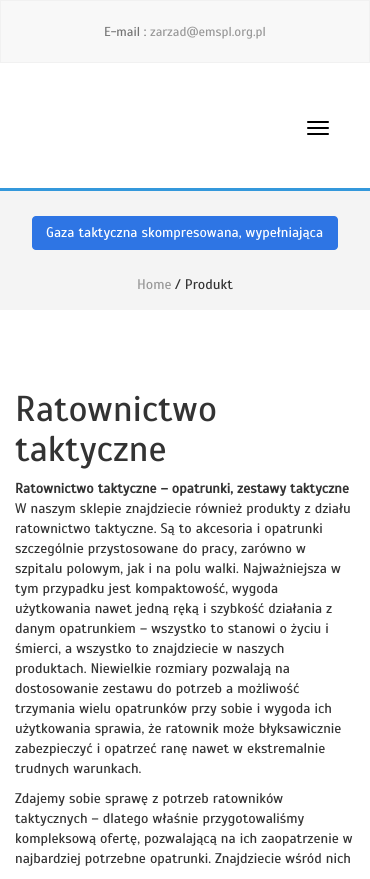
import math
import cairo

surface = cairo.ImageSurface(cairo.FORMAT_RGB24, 370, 879)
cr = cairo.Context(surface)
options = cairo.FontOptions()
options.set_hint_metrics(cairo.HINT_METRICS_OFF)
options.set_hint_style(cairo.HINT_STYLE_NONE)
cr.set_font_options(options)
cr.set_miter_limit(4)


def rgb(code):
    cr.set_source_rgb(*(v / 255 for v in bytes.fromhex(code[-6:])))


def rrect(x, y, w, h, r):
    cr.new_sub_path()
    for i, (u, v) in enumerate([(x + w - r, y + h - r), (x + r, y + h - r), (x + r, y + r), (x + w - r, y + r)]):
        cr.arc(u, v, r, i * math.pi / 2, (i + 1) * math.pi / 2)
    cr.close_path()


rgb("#ffffff")
cr.paint()
rgb("#f8f8f8")
cr.rectangle(0.5, 0.5, 369, 62)
cr.fill_preserve()
rgb("#f1f1f1")
cr.set_line_width(1)
cr.stroke()
rgb("#000000")
rrect(307, 121, 22, 2, 1)
cr.fill()
rrect(307, 127, 22, 2, 1)
cr.fill()
rrect(307, 133, 22, 2, 1)
cr.fill()
rgb("#f4f4f4")
cr.rectangle(0, 191, 370, 119)
cr.fill()
rgb("#3498db")
cr.rectangle(0, 188, 370, 3)
cr.fill()
rgb("#2e75e4")
rrect(32, 216, 306, 34, 4)
cr.fill()
cr.select_font_face("Scada")
cr.set_font_size(13)
rgb("#747474")
cr.move_to(104, 36)
cr.show_text("E-mail :")
rgb("#989898")
cr.move_to(150, 36)
cr.show_text("zarzad@emspl.org.pl")
cr.set_font_size(14)
rgb("#feffff")
cr.move_to(46, 237)
cr.show_text("Gaza taktyczna skompresowana, wypełniająca")
rgb("#989898")
cr.move_to(137, 289)
cr.show_text("Home")
rgb("#333333")
cr.move_to(175, 289)
cr.show_text("/ Produkt")
cr.set_font_size(36)
cr.move_to(15, 421)
cr.show_text("Ratownictwo")
cr.move_to(15, 461)
cr.show_text("taktyczne")
cr.select_font_face("Scada", cairo.FONT_SLANT_NORMAL, cairo.FONT_WEIGHT_BOLD)
cr.set_font_size(14)
cr.move_to(15, 493)
cr.show_text("Ratownictwo taktyczne – opatrunki, zestawy taktyczne")
cr.select_font_face("Scada")
for x, y, s in [
    (15, 513, "W naszym sklepie znajdziecie również produkty z działu"),
    (15, 533, "ratownictwo taktyczne. Są to akcesoria i opatrunki"),
    (15, 553, "szczególnie przystosowane do pracy, zarówno w"),
    (15, 573, "szpitalu polowym, jak i na polu walki. Najważniejsza w"),
    (15, 593, "tym przypadku jest kompaktowość, wygoda"),
    (15, 613, "użytkowania nawet jedną ręką i szybkość działania z"),
    (15, 633, "danym opatrunkiem – wszystko to stanowi o życiu i"),
    (15, 653, "śmierci, a wszystko to znajdziecie w naszych"),
    (15, 673, "produktach. Niewielkie rozmiary pozwalają na"),
    (15, 693, "dostosowanie zestawu do potrzeb a możliwość"),
    (15, 713, "trzymania wielu opatrunków przy sobie i wygoda ich"),
    (15, 733, "użytkowania sprawia, że ratownik może błyksawicznie"),
    (15, 753, "zabezpieczyć i opatrzeć ranę nawet w ekstremalnie"),
    (15, 773, "trudnych warunkach."),
    (15, 803, "Zdajemy sobie sprawę z potrzeb ratowników"),
    (15, 823, "taktycznych – dlatego właśnie przygotowaliśmy"),
    (15, 843, "kompleksową ofertę, pozwalającą na ich zaopatrzenie w"),
    (15, 863, "najbardziej potrzebne opatrunki. Znajdziecie wśród nich"),
]:
    cr.move_to(x, y)
    cr.show_text(s)
surface.write_to_png("page.png")
